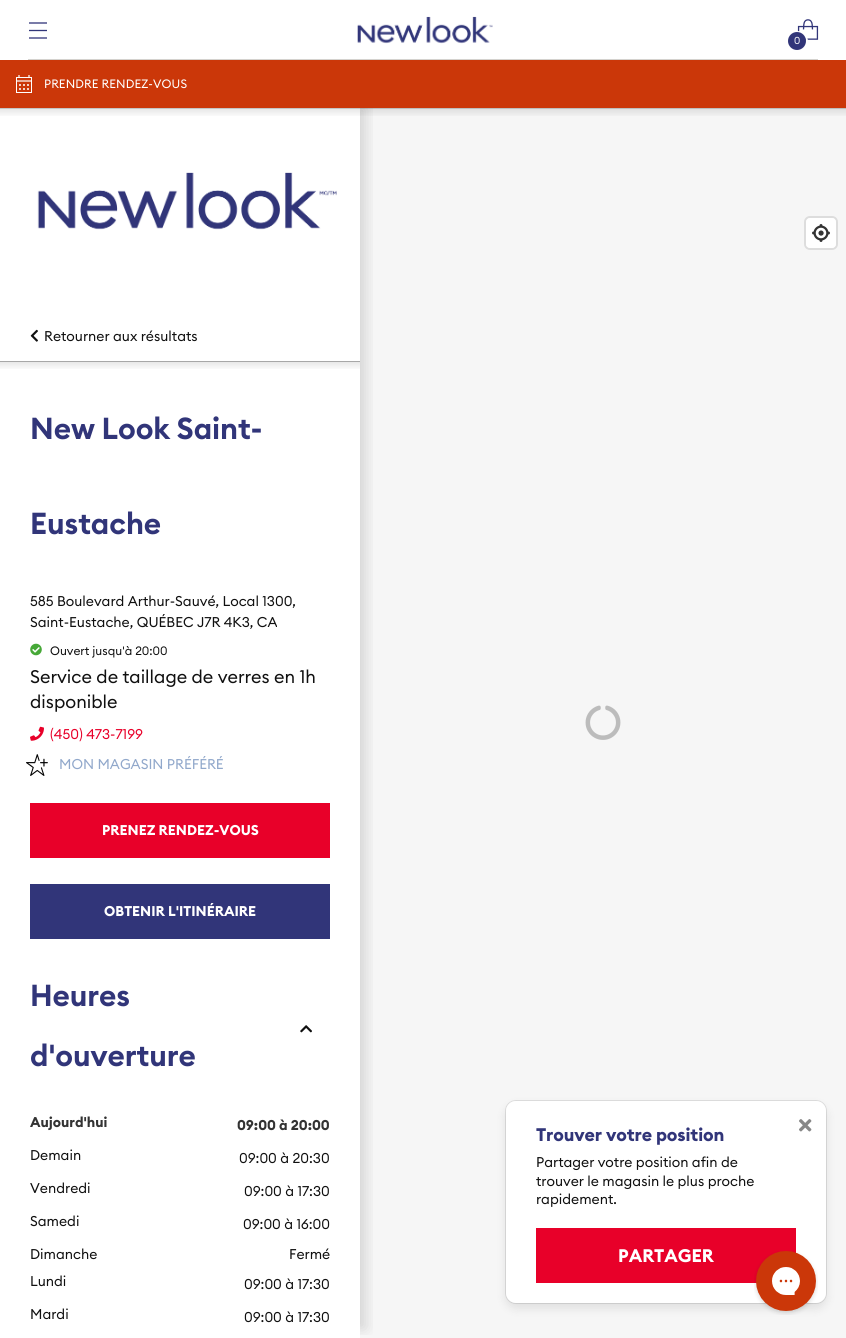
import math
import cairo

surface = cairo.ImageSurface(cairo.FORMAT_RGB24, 846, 1338)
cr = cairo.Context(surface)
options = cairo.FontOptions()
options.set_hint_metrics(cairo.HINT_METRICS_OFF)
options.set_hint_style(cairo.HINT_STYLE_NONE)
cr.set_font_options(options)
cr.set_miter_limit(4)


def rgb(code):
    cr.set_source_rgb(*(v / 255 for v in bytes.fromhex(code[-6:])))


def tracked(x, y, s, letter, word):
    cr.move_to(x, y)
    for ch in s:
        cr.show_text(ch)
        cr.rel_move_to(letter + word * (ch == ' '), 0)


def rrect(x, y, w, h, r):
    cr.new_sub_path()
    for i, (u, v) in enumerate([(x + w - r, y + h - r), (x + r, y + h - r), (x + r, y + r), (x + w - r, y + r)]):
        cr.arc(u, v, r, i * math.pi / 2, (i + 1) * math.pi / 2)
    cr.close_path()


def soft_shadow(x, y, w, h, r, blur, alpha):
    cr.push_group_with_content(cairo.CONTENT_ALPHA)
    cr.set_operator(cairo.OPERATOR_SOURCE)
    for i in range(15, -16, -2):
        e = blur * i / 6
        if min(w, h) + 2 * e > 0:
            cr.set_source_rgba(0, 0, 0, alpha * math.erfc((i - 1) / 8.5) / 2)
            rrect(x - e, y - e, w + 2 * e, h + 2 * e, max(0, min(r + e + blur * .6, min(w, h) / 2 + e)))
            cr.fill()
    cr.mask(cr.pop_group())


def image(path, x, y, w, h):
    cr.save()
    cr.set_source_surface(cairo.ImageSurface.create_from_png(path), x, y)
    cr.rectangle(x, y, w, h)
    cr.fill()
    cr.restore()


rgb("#ffffff")
cr.paint()
rgb("#d4d2ce")
cr.rectangle(28, 59, 790, 1)
cr.fill()
cr.new_path()
cr.move_to(29, 30.5)
cr.line_to(47, 30.5)
cr.move_to(29, 23)
cr.line_to(47, 23)
cr.move_to(29, 38)
cr.line_to(47, 38)
rgb("#313579")
cr.set_line_width(1.3)
cr.stroke()
image("img/1.png", 357, 16, 136, 28)
image("img/2.png", 797, 19, 22, 21)
cr.arc(797.5, 41.5, 9.5, 0, 2 * math.pi)
rgb("#ffffff")
cr.set_line_width(2)
cr.stroke()
rgb("#313579")
cr.arc(797, 41, 9, 0, 2 * math.pi)
cr.fill()
rgb("#f6f6f6")
cr.rectangle(360, 108, 486, 1230)
cr.fill()
cr.save()
cr.rectangle(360, 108, 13, 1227)
cr.clip()
rgb("#000000")
soft_shadow(15, 108, 350, 1220, 0, 7.5, 0.15)
cr.restore()
rgb("#cb3709")
cr.rectangle(0, 60, 846, 48)
cr.fill()
image("img/3.png", 16, 75, 16, 18)
image("img/4.png", 0, 108, 360, 203)
gradient = cairo.LinearGradient(423, 108, 423, 118)
gradient.add_color_stop_rgba(0, 0, 0, 0, 0.1)
gradient.add_color_stop_rgba(1, 0, 0, 0, 0)
cr.set_source(gradient)
cr.rectangle(0, 108, 846, 8)
cr.fill()
cr.set_source_rgba(0, 0, 0, 0.15)
cr.rectangle(0, 108, 846, 1)
cr.fill()
image("img/5.png", 30, 329, 8, 13)
gradient = cairo.LinearGradient(180, 361, 180, 371)
gradient.add_color_stop_rgba(0, 0, 0, 0, 0.1)
gradient.add_color_stop_rgba(1, 0, 0, 0, 0)
cr.set_source(gradient)
cr.rectangle(0, 362, 360, 7)
cr.fill()
rgb("#a7a7a7")
cr.rectangle(0, 361, 360, 1)
cr.fill()
image("img/6.png", 30, 643, 12, 13)
image("img/7.png", 30, 726, 14, 15)
image("img/8.png", 26, 754, 22, 22)
rgb("#e80029")
cr.rectangle(30, 803, 300, 55)
cr.fill()
rgb("#313579")
cr.rectangle(30, 884, 300, 55)
cr.fill()
image("img/9.png", 300, 1025, 12, 8)
rrect(805, 217, 32, 32, 5)
rgb("#dddddd")
cr.stroke()
rgb("#ffffff")
rrect(806, 218, 30, 30, 4)
cr.fill()
image("img/10.png", 812, 224, 18, 18)
image("img/11.png", 585, 705, 36, 35)
rgb("#000000")
soft_shadow(506, 1106, 320, 202, 10, 5, 0.1)
rrect(505.5, 1100.5, 321, 203, 10.5)
cr.set_source_rgba(0, 0, 0, 0.1)
cr.set_line_width(1)
cr.stroke()
rgb("#ffffff")
rrect(506, 1101, 320, 202, 10)
cr.fill()
image("img/12.png", 799, 1119, 13, 13)
rgb("#e80029")
cr.rectangle(536, 1228, 260, 55)
cr.fill()
image("img/13.png", 754, 1251, 64, 64)
cr.select_font_face("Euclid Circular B")
cr.set_font_size(10)
rgb("#ffffff")
cr.move_to(794, 44)
cr.show_text("0")
cr.set_font_size(12)
tracked(44, 88, "PRENDRE RENDEZ-VOUS", 0.1, 0)
cr.set_font_size(14)
rgb("#101010")
cr.move_to(44, 341)
cr.show_text("Retourner aux résultats")
cr.select_font_face("Euclid Circular B SemiBold")
cr.set_font_size(30)
rgb("#313579")
tracked(30, 439, "New Look Saint-", -0.1, 0)
tracked(30, 534, "Eustache", -0.1, 0)
cr.select_font_face("Euclid Circular B")
cr.set_font_size(14)
rgb("#101010")
cr.move_to(30, 606)
cr.show_text("585 Boulevard Arthur-Sauvé, Local 1300,")
cr.move_to(30, 627)
cr.show_text("Saint-Eustache, QUÉBEC J7R 4K3, CA")
cr.set_font_size(12)
cr.move_to(50, 655)
cr.show_text("Ouvert jusqu'à 20:00")
cr.set_font_size(18)
cr.move_to(30, 683)
cr.show_text("Service de taillage de verres en 1h")
cr.move_to(30, 708)
cr.show_text("disponible")
cr.set_font_size(14)
rgb("#e80029")
cr.move_to(50, 739)
cr.show_text("(450) 473-7199")
rgb("#91a8cb")
cr.move_to(59, 769)
cr.show_text("MON MAGASIN PRÉFÉRÉ")
cr.select_font_face("Euclid Circular B", cairo.FONT_SLANT_NORMAL, cairo.FONT_WEIGHT_BOLD)
rgb("#ffffff")
cr.move_to(102, 835)
cr.show_text("PRENEZ RENDEZ-VOUS")
cr.move_to(104, 916)
cr.show_text("OBTENIR L'ITINÉRAIRE")
cr.select_font_face("Euclid Circular B SemiBold")
cr.set_font_size(30)
rgb("#313579")
tracked(30, 1006, "Heures", -0.1, 0)
tracked(30, 1066, "d'ouverture", -0.1, 0)
cr.select_font_face("Euclid Circular B", cairo.FONT_SLANT_NORMAL, cairo.FONT_WEIGHT_BOLD)
cr.set_font_size(14)
rgb("#333333")
cr.move_to(30, 1127)
cr.show_text("Aujourd'hui")
cr.move_to(237, 1130)
cr.show_text("09:00 à 20:00")
cr.select_font_face("Euclid Circular B")
rgb("#101010")
for x, y, s in [
    (30, 1160, "Demain"),
    (239, 1163, "09:00 à 20:30"),
    (30, 1193, "Vendredi"),
    (244, 1196, "09:00 à 17:30"),
    (30, 1226, "Samedi"),
    (243, 1229, "09:00 à 16:00"),
    (30, 1259, "Dimanche"),
    (289, 1259, "Fermé"),
    (30, 1286, "Lundi"),
    (244, 1289, "09:00 à 17:30"),
    (30, 1319, "Mardi"),
    (244, 1322, "09:00 à 17:30"),
]:
    cr.move_to(x, y)
    cr.show_text(s)
cr.select_font_face("Euclid Circular B", cairo.FONT_SLANT_NORMAL, cairo.FONT_WEIGHT_BOLD)
cr.set_font_size(18)
rgb("#313579")
tracked(536, 1141, "Trouver votre position", -0.1, 0)
cr.select_font_face("Euclid Circular B")
cr.set_font_size(14)
rgb("#101010")
for x, y, s in [
    (536, 1167, "Partager votre position afin de"),
    (536, 1186, "trouver le magasin le plus proche"),
    (536, 1204, "rapidement."),
]:
    cr.move_to(x, y)
    cr.show_text(s)
cr.select_font_face("Euclid Circular B", cairo.FONT_SLANT_NORMAL, cairo.FONT_WEIGHT_BOLD)
cr.set_font_size(18)
rgb("#ffffff")
cr.move_to(618, 1262)
cr.show_text("PARTAGER")
surface.write_to_png("page.png")
